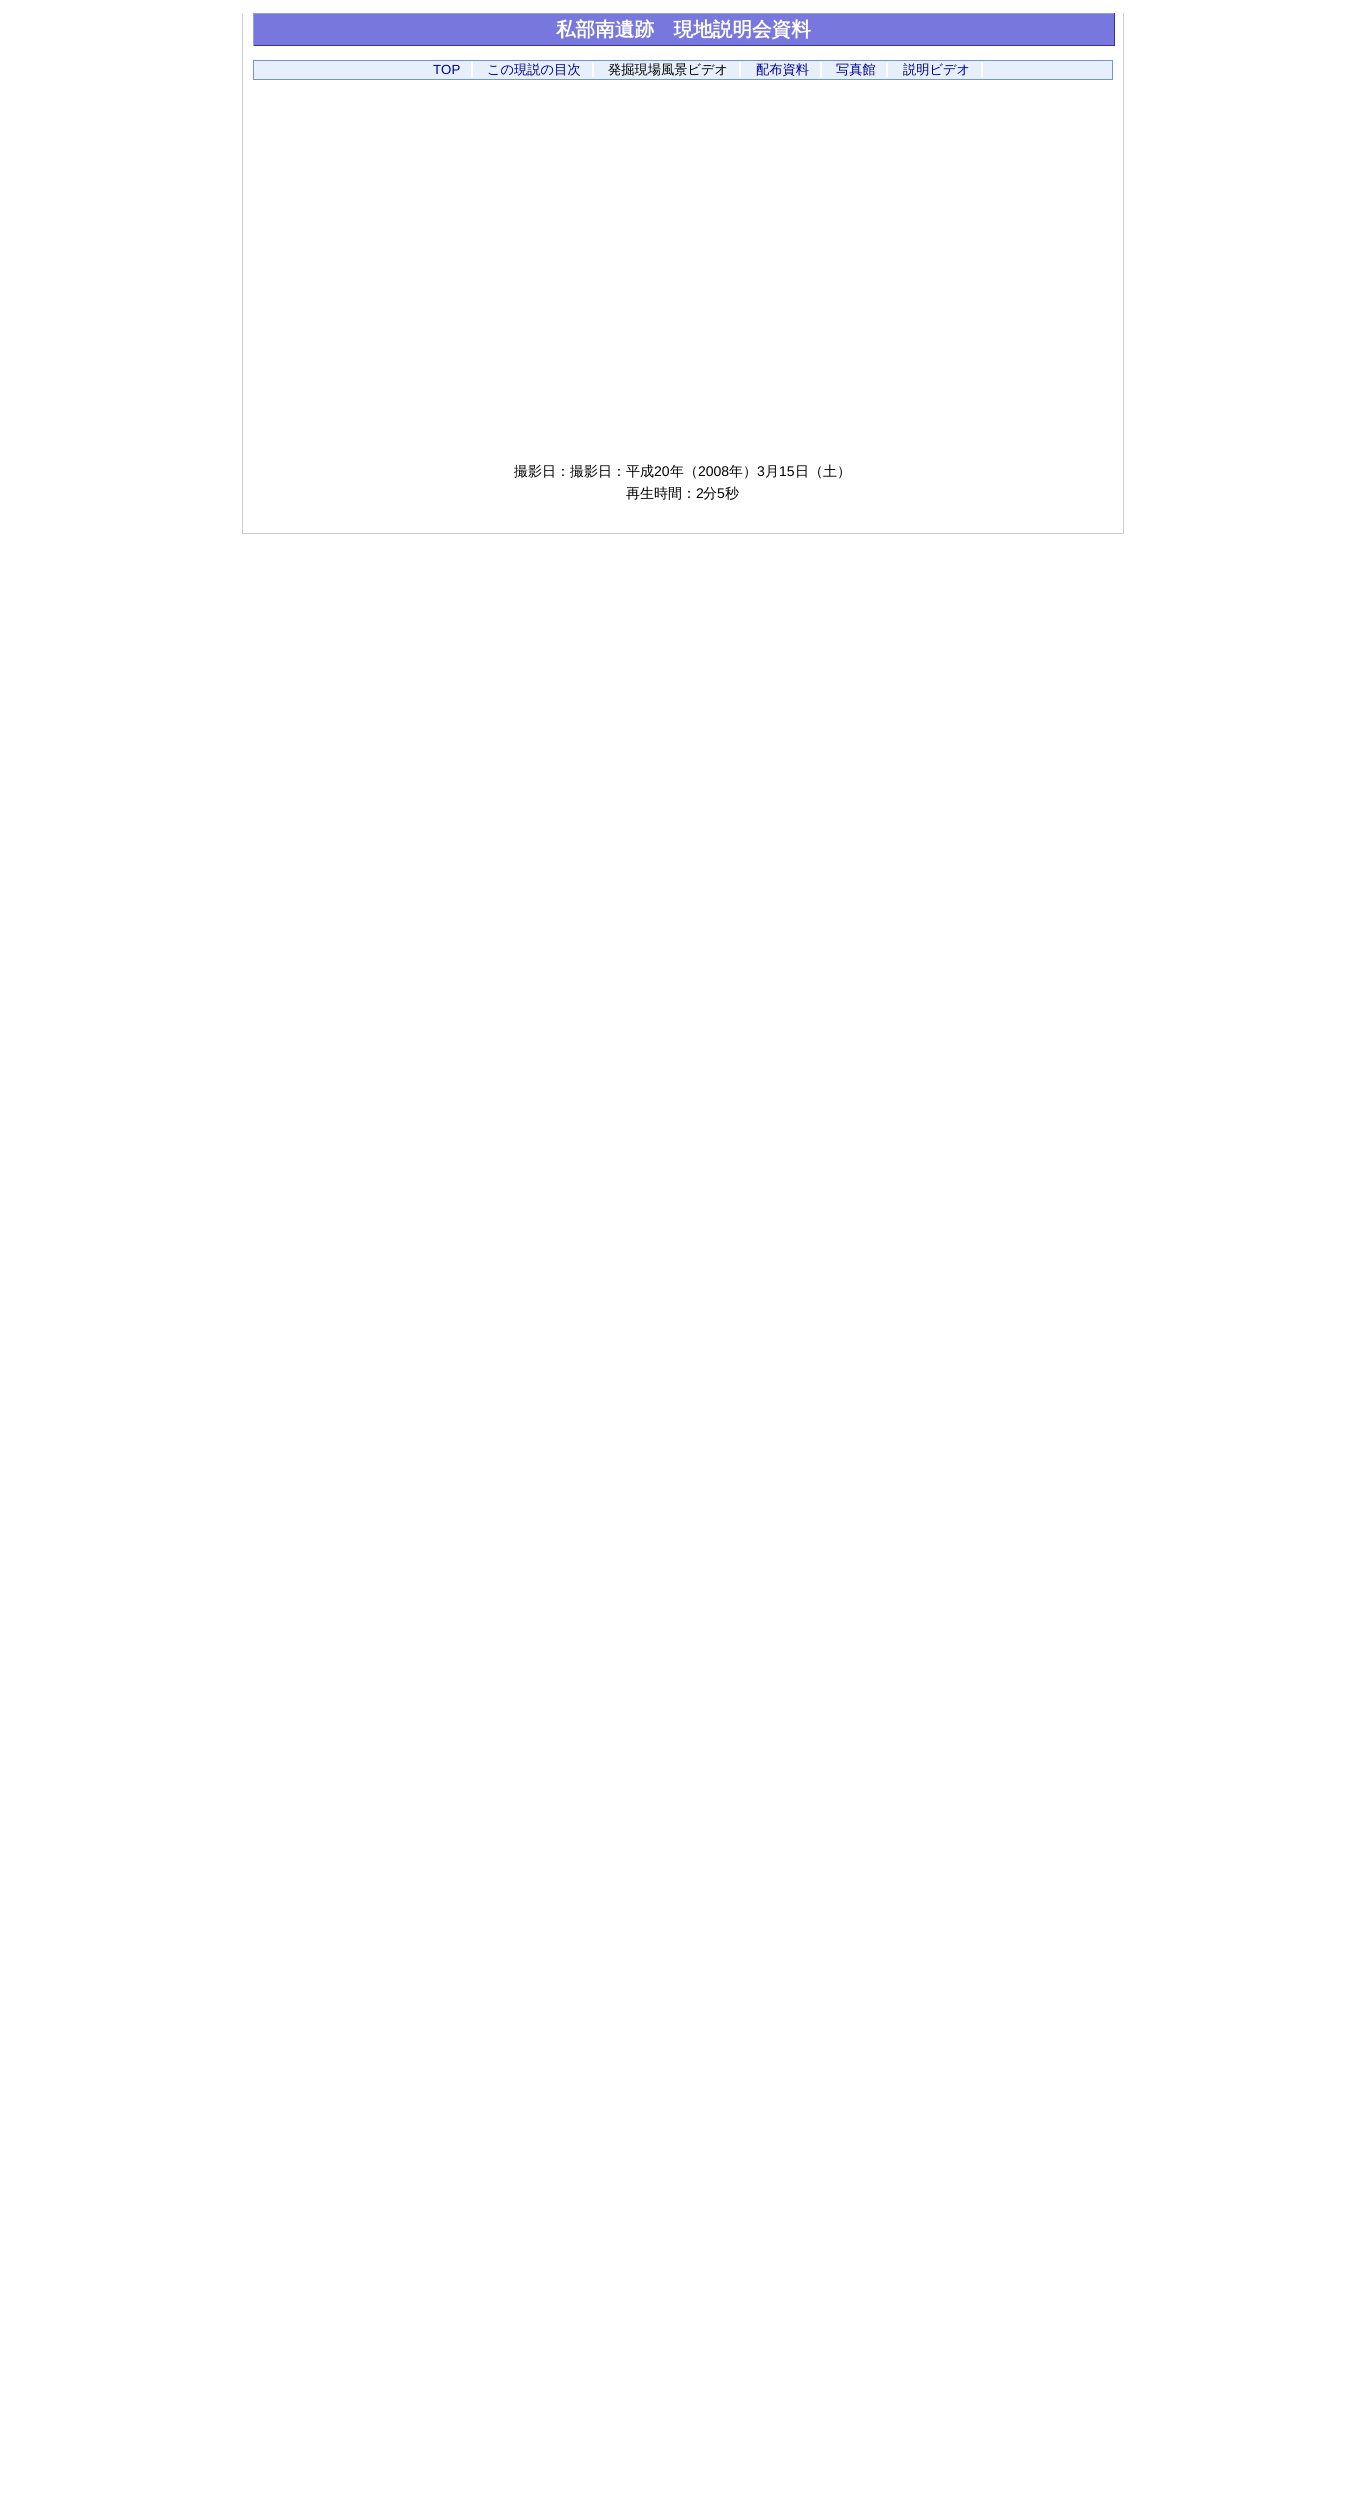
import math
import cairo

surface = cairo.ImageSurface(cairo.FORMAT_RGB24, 1365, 2520)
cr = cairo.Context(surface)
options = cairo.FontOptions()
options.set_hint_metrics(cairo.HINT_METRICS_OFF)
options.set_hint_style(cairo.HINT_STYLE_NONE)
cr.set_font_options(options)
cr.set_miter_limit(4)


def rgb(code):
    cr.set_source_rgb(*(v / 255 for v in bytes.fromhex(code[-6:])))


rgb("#ffffff")
cr.paint()
for x, y, w, h, color in [
    (1123, 13, 1, 521, "#cccccc"),
    (242, 533, 882, 1, "#cccccc"),
    (242, 13, 1, 521, "#cccccc"),
    (254, 14, 860, 31, "#7777dd"),
    (253, 13, 862, 1, "#9999ff"),
    (1114, 13, 1, 33, "#333399"),
    (253, 45, 862, 1, "#333399"),
    (253, 13, 1, 33, "#9999ff"),
]:
    rgb(color)
    cr.rectangle(x, y, w, h)
    cr.fill()
rgb("#e7effa")
cr.rectangle(253.5, 60.5, 859, 19)
cr.fill_preserve()
rgb("#6f98d1")
cr.set_line_width(1)
cr.stroke()
for x, y, w, h, color in [
    (471, 62, 2, 15, "#ffffff"),
    (592, 62, 2, 15, "#ffffff"),
    (739, 62, 2, 15, "#ffffff"),
    (820, 62, 2, 15, "#ffffff"),
    (886, 62, 2, 15, "#ffffff"),
    (981, 62, 2, 15, "#ffffff"),
]:
    rgb(color)
    cr.rectangle(x, y, w, h)
    cr.fill()
cr.select_font_face("WenQuanYi Zen Hei", cairo.FONT_SLANT_NORMAL, cairo.FONT_WEIGHT_BOLD)
cr.set_font_size(19.6)
cr.move_to(556, 36)
cr.show_text("私部南遺跡　現地説明会資料")
cr.select_font_face("Liberation Sans")
cr.set_font_size(13.25)
rgb("#000099")
cr.move_to(433, 74)
cr.show_text("TOP")
cr.select_font_face("WenQuanYi Zen Hei Medium")
cr.move_to(487, 74)
cr.show_text("この現説の目次")
rgb("#000000")
cr.move_to(608, 74)
cr.show_text("発掘現場風景ビデオ")
rgb("#000099")
for x, y, s in [
    (756, 74, "配布資料"),
    (836, 74, "写真館"),
    (903, 74, "説明ビデオ"),
]:
    cr.move_to(x, y)
    cr.show_text(s)
cr.set_font_size(14)
rgb("#000000")
cr.move_to(514, 476)
cr.show_text("撮影日：撮影日：平成")
cr.select_font_face("Liberation Sans")
cr.move_to(654, 476)
cr.show_text("20")
cr.select_font_face("WenQuanYi Zen Hei Medium")
cr.move_to(670, 476)
cr.show_text("年（")
cr.select_font_face("Liberation Sans")
cr.move_to(698, 476)
cr.show_text("2008")
cr.select_font_face("WenQuanYi Zen Hei Medium")
cr.move_to(729, 476)
cr.show_text("年）")
cr.select_font_face("Liberation Sans")
cr.move_to(757, 476)
cr.show_text("3")
cr.select_font_face("WenQuanYi Zen Hei Medium")
cr.move_to(765, 476)
cr.show_text("月")
cr.select_font_face("Liberation Sans")
cr.move_to(779, 476)
cr.show_text("15")
cr.select_font_face("WenQuanYi Zen Hei Medium")
cr.move_to(795, 476)
cr.show_text("日（土）")
cr.move_to(626, 498)
cr.show_text("再生時間：")
cr.select_font_face("Liberation Sans")
cr.move_to(696, 498)
cr.show_text("2")
cr.select_font_face("WenQuanYi Zen Hei Medium")
cr.move_to(703, 498)
cr.show_text("分")
cr.select_font_face("Liberation Sans")
cr.move_to(717, 498)
cr.show_text("5")
cr.select_font_face("WenQuanYi Zen Hei Medium")
cr.move_to(725, 498)
cr.show_text("秒")
surface.write_to_png("page.png")
